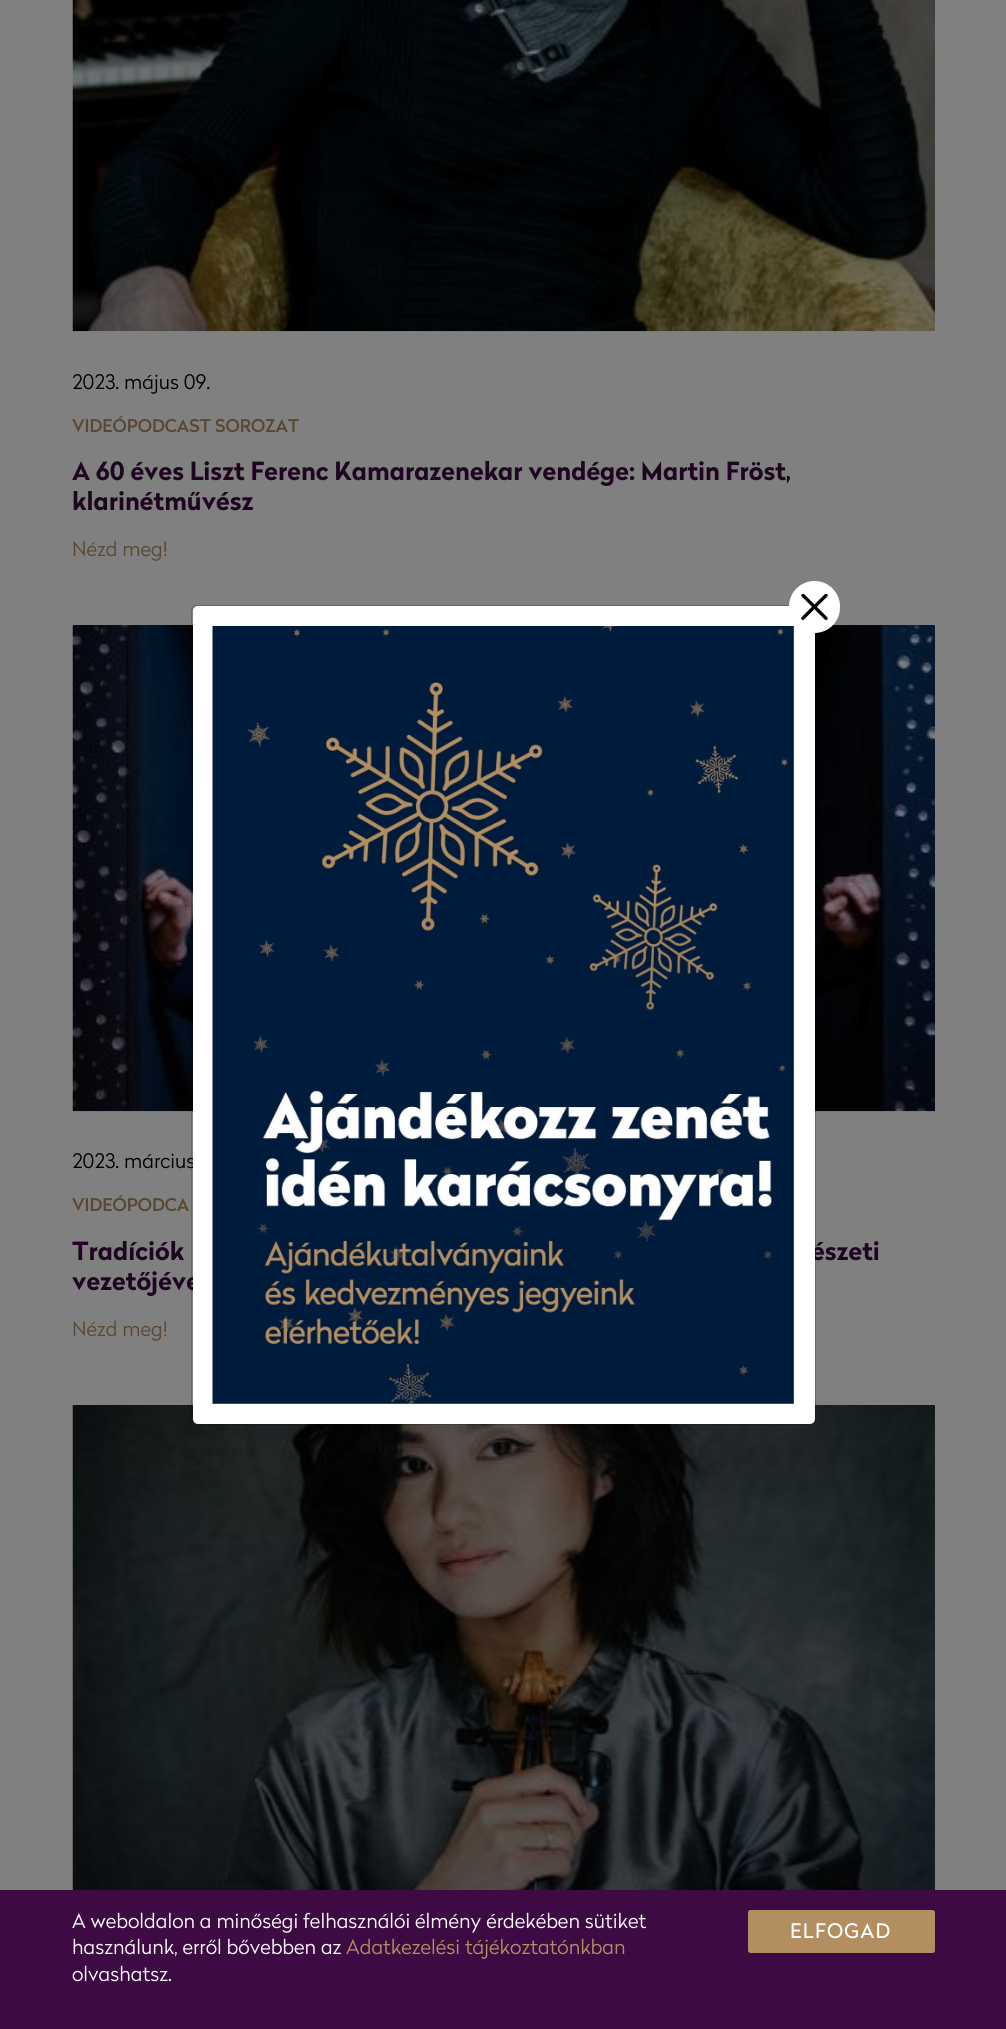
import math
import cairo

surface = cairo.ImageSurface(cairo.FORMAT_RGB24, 1006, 2029)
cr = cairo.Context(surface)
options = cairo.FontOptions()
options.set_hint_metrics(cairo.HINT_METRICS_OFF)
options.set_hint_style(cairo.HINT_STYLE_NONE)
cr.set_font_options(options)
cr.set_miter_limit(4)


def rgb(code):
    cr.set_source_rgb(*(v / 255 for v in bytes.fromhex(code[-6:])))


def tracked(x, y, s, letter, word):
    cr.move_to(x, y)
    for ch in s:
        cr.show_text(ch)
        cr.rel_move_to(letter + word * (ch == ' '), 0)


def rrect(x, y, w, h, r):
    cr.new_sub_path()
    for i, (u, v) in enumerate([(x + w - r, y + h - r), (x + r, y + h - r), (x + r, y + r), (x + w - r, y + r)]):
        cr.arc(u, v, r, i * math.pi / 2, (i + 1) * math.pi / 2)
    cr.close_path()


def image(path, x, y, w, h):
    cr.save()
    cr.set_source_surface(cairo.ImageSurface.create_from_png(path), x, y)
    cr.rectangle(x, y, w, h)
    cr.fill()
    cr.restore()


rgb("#808080")
cr.paint()
image("img/1.png", 72, 0, 863, 332)
image("img/2.png", 72, 625, 863, 487)
image("img/3.png", 72, 1405, 863, 485)
rgb("#3d0a43")
cr.rectangle(0, 1890, 1006, 139)
cr.fill()
rgb("#b38e61")
rrect(749.5, 1911.5, 184, 40, 1)
cr.fill_preserve()
cr.set_line_width(3)
cr.stroke()
cr.select_font_face("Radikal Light")
cr.set_font_size(20)
rgb("#000000")
cr.move_to(72, 389)
cr.show_text("2023. május 09.")
cr.select_font_face("Radikal Medium")
cr.set_font_size(17.5)
rgb("#5a4731")
cr.move_to(72, 432)
cr.show_text("VIDEÓPODCAST SOROZAT")
cr.select_font_face("Radikal", cairo.FONT_SLANT_NORMAL, cairo.FONT_WEIGHT_BOLD)
cr.set_font_size(25)
rgb("#1f0522")
cr.move_to(72, 480)
cr.show_text("A 60 éves Liszt Ferenc Kamarazenekar vendége: Martin Fröst,")
cr.move_to(72, 510)
cr.show_text("klarinétművész")
cr.select_font_face("Radikal Light")
cr.set_font_size(20)
rgb("#5a4731")
cr.move_to(72, 556)
cr.show_text("Nézd meg!")
rgb("#000000")
cr.move_to(72, 1168)
cr.show_text("2023. március")
cr.select_font_face("Radikal Medium")
cr.set_font_size(17.5)
rgb("#5a4731")
cr.move_to(72, 1211)
cr.show_text("VIDEÓPODCA")
cr.select_font_face("Radikal", cairo.FONT_SLANT_NORMAL, cairo.FONT_WEIGHT_BOLD)
cr.set_font_size(25)
rgb("#1f0522")
for x, y, s in [
    (72, 1260, "Tradíciók"),
    (811, 1260, "észeti"),
    (72, 1290, "vezetőjéve"),
]:
    cr.move_to(x, y)
    cr.show_text(s)
cr.select_font_face("Radikal Light")
cr.set_font_size(20)
rgb("#5a4731")
cr.move_to(72, 1336)
cr.show_text("Nézd meg!")
rgb("#ffffff")
rrect(193, 606, 622, 818, 5)
cr.fill()
rrect(191.5, 605.5, 624, 819, 5.5)
cr.set_source_rgba(0, 0, 0, 0.2)
cr.set_line_width(1)
cr.stroke()
image("img/5.png", 212, 626, 582, 778)
rgb("#ffffff")
rrect(789, 581, 51, 52, 25.5)
cr.fill()
image("img/4.png", 801, 594, 27, 26)
cr.move_to(72, 1928)
cr.show_text("A weboldalon a minőségi felhasználói élmény érdekében sütiket")
cr.move_to(72, 1954)
cr.show_text("használunk, erről bővebben az")
rgb("#b38e61")
cr.move_to(346, 1954)
cr.show_text("Adatkezelési tájékoztatónkban")
rgb("#ffffff")
cr.move_to(72, 1981)
cr.show_text("olvashatsz.")
cr.select_font_face("Radikal")
tracked(790, 1938, "ELFOGAD", 1.25, 0)
surface.write_to_png("page.png")
